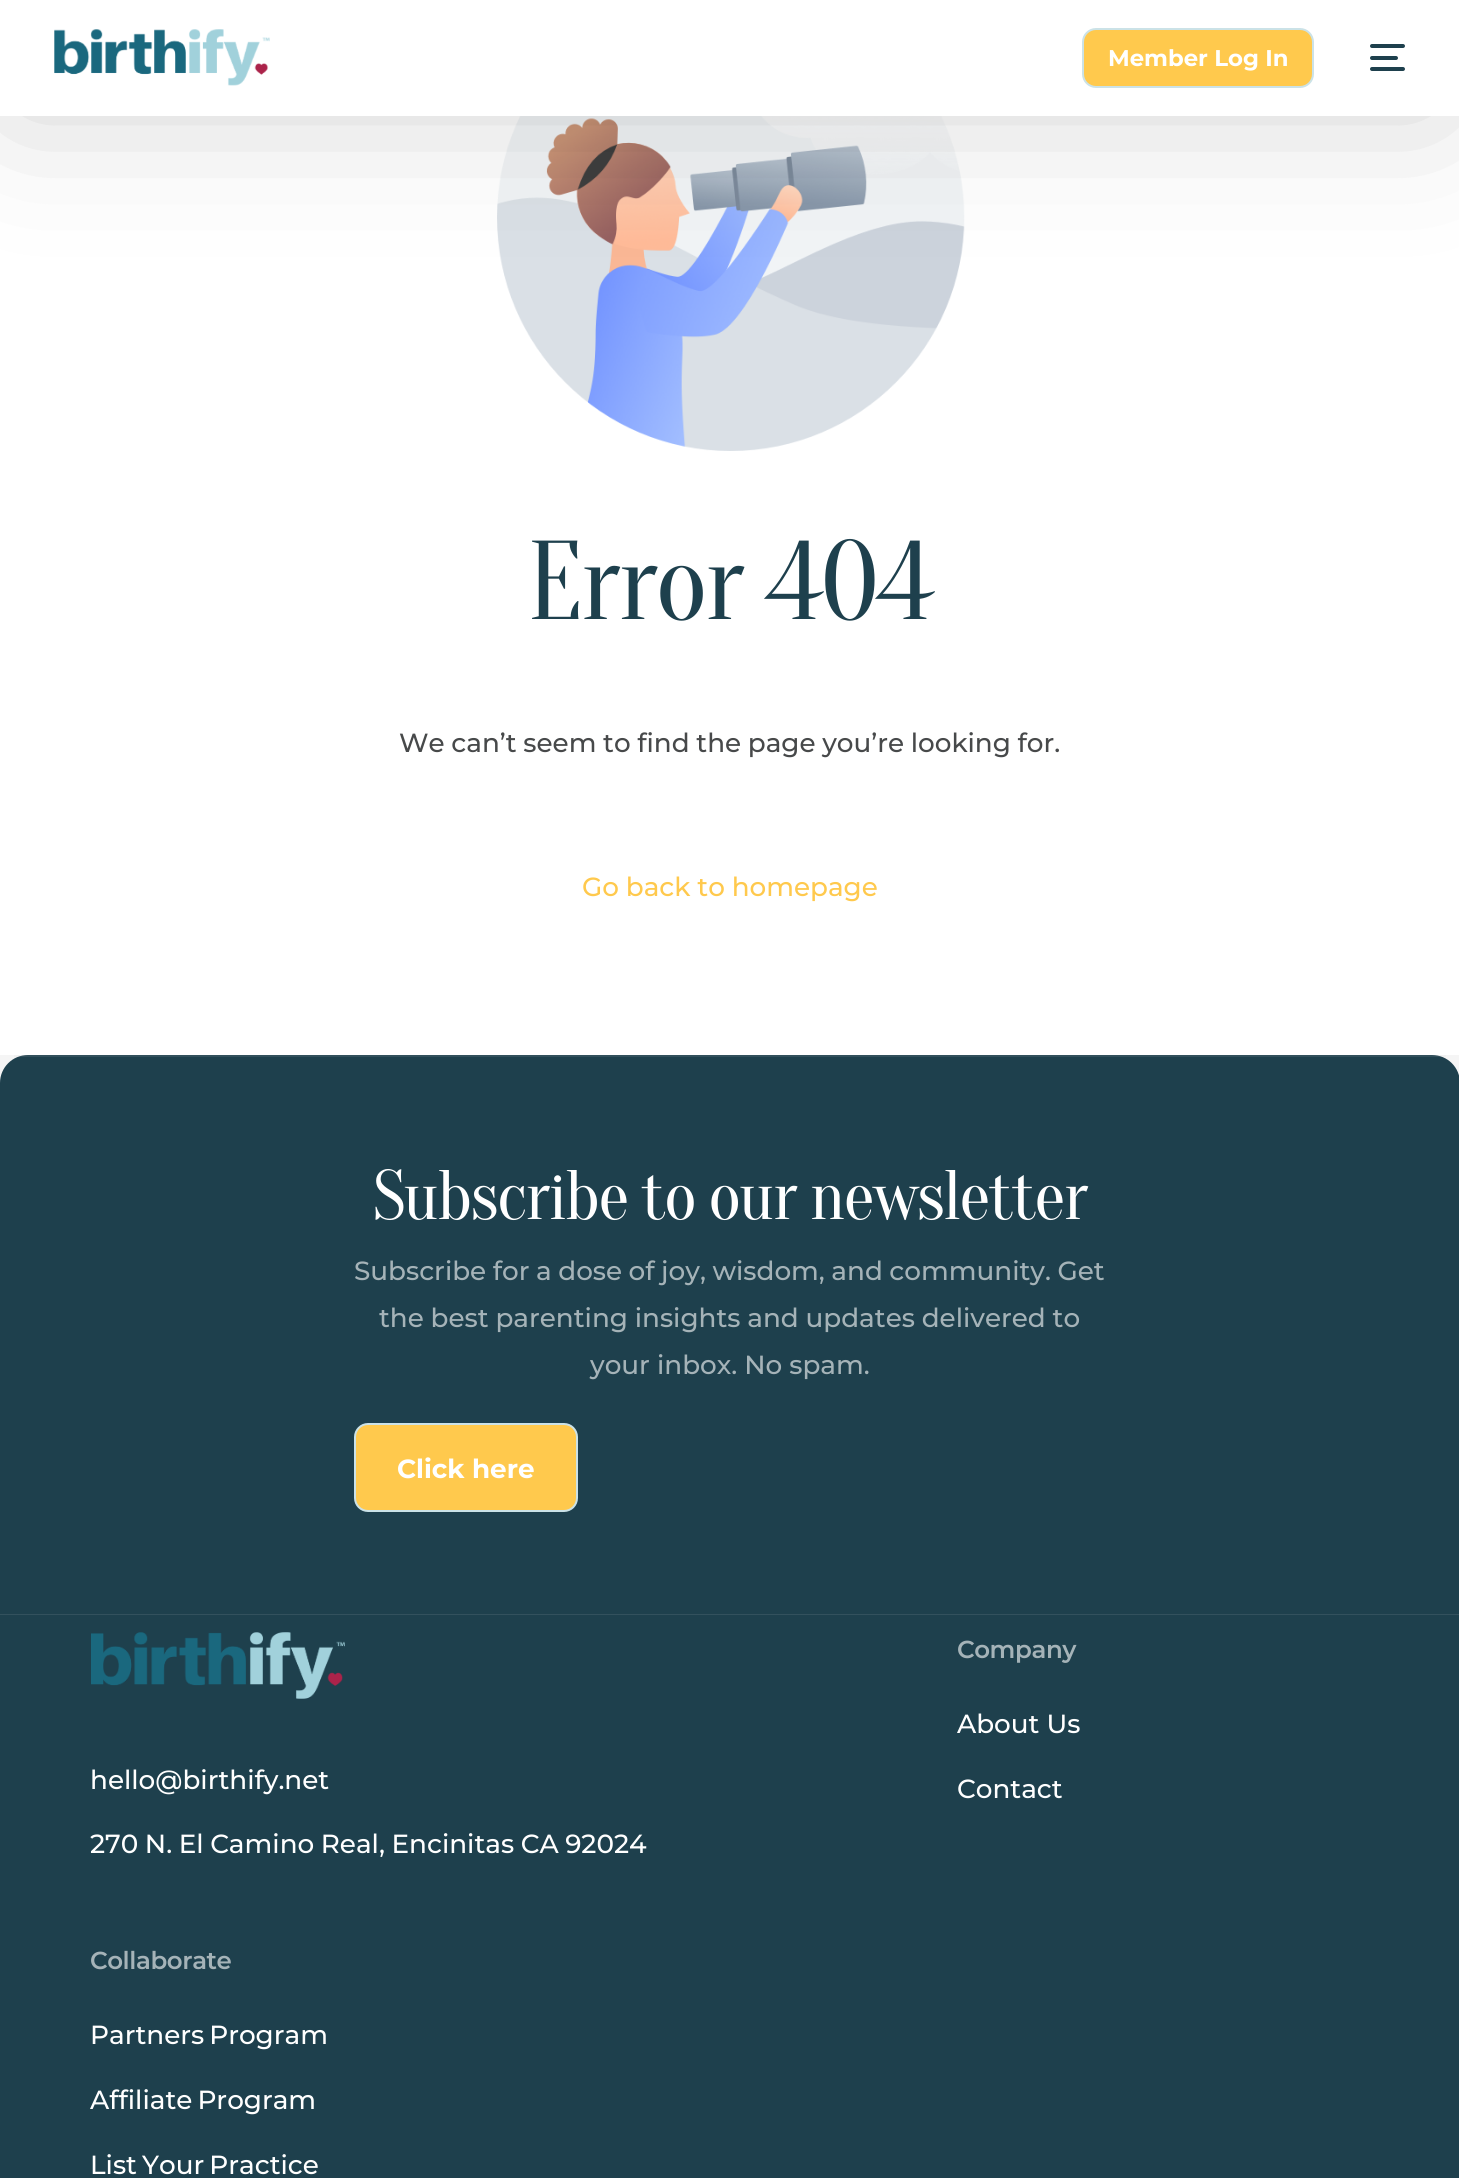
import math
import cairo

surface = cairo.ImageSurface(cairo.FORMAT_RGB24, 1459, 2178)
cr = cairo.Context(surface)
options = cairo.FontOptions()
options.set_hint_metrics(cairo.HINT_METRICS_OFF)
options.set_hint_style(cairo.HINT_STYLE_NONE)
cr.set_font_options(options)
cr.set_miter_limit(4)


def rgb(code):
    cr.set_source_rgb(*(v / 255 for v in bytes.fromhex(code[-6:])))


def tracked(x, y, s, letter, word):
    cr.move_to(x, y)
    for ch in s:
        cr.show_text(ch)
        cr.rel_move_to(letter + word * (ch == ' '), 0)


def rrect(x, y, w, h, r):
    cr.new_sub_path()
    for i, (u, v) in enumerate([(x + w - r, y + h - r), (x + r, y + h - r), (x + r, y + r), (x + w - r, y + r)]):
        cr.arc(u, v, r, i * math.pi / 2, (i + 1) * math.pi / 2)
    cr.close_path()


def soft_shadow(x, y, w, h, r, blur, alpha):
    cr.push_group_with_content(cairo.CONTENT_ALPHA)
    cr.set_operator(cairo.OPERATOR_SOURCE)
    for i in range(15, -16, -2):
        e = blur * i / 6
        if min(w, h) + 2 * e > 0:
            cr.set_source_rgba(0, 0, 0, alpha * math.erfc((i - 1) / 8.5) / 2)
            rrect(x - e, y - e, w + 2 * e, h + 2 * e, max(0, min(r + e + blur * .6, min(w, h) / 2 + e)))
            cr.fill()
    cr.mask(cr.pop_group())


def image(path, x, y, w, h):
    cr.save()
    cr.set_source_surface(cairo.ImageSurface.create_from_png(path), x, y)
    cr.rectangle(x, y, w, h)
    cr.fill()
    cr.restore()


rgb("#ffffff")
cr.paint()
image("img/2.png", 497, 116, 468, 335)
rgb("#000000")
soft_shadow(32, 40, 1389, 46, 0, 79, 0.25)
rgb("#ffffff")
cr.rectangle(0, 0, 1459, 116)
cr.fill()
image("img/1.png", 54, 29, 216, 57)
rgb("#ffc94d")
rrect(1083, 29, 230, 58, 13)
cr.fill_preserve()
rgb("#cbe2e7")
cr.stroke()
rgb("#1e404d")
rrect(1370, 44, 35, 4, 2)
cr.fill()
rrect(1370, 56, 28, 4, 2)
cr.fill()
rrect(1370, 67, 35, 4, 2)
cr.fill()
rgb("#f5f5f5")
cr.rectangle(0, 1055, 1459, 28)
cr.fill()
rgb("#1e404d")
cr.new_path()
cr.move_to(28, 1055)
cr.line_to(1432, 1055)
cr.curve_to(1447.5, 1055, 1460, 1067.5, 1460, 1083)
cr.line_to(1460, 1615)
cr.line_to(0, 1615)
cr.line_to(0, 1083)
cr.curve_to(0, 1067.5, 12.5, 1055, 28, 1055)
cr.close_path()
cr.fill()
rgb("#33515d")
cr.rectangle(0, 1614, 1459, 1)
cr.fill()
cr.set_source_rgba(0.812, 0.812, 0.812, 0.12)
cr.rectangle(14, 1055, 1432, 2)
cr.fill()
rgb("#ffc94d")
rrect(355, 1424, 222, 87, 13)
cr.fill_preserve()
rgb("#cbe2e7")
cr.stroke()
rgb("#1e404d")
cr.rectangle(0, 1615, 1459, 563)
cr.fill()
image("img/3.png", 91, 1632, 254, 67)
cr.select_font_face("Montserrat", cairo.FONT_SLANT_NORMAL, cairo.FONT_WEIGHT_BOLD)
cr.set_font_size(22.75)
rgb("#ffffff")
cr.move_to(1108, 66)
cr.show_text("Member Log In")
cr.select_font_face("Oranienbaum")
cr.set_font_size(112)
rgb("#1e404d")
tracked(527, 619, "Error 404", -3, -1)
cr.select_font_face("Montserrat Medium")
cr.set_font_size(26.25)
rgb("#47494a")
tracked(399, 752, "We can’t seem to find the page you’re looking for.", 0, -0.4)
rgb("#ffc94d")
tracked(582, 896, "Go back to homepage", 0, -0.25)
cr.select_font_face("Oranienbaum")
cr.set_font_size(70)
rgb("#ffffff")
tracked(373, 1219, "Subscribe to our newsletter", -1.9, -1.5)
cr.select_font_face("Montserrat Medium")
cr.set_font_size(26.25)
rgb("#a5b3b8")
tracked(354, 1280, "Subscribe for a dose of joy, wisdom, and community. Get", 0, -0.5)
tracked(379, 1327, "the best parenting insights and updates delivered to", 0, -0.25)
cr.move_to(590, 1374)
cr.show_text("your inbox. No spam.")
cr.select_font_face("Montserrat", cairo.FONT_SLANT_NORMAL, cairo.FONT_WEIGHT_BOLD)
rgb("#ffffff")
cr.move_to(397, 1478)
cr.show_text("Click here")
cr.select_font_face("Montserrat SemiBold")
cr.set_font_size(24.5)
rgb("#a5b3b8")
tracked(957, 1658, "Company", -0.4, 0)
cr.select_font_face("Montserrat Medium")
cr.set_font_size(26.25)
rgb("#ffffff")
for x, y, s in [
    (957, 1733, "About Us"),
    (957, 1798, "Contact"),
    (90, 1789, "hello@birthify.net"),
]:
    cr.move_to(x, y)
    cr.show_text(s)
tracked(90, 1853, "270 N. El Camino Real, Encinitas CA 92024", 0, -0.5)
cr.select_font_face("Montserrat SemiBold")
cr.set_font_size(24.5)
rgb("#a5b3b8")
tracked(90, 1969, "Collaborate", -0.4, 0)
cr.select_font_face("Montserrat Medium")
cr.set_font_size(26.25)
rgb("#ffffff")
for x, y, s in [
    (90, 2044, "Partners Program"),
    (90, 2109, "Affiliate Program"),
    (90, 2174, "List Your Practice"),
]:
    tracked(x, y, s, 0, -2)
surface.write_to_png("page.png")
